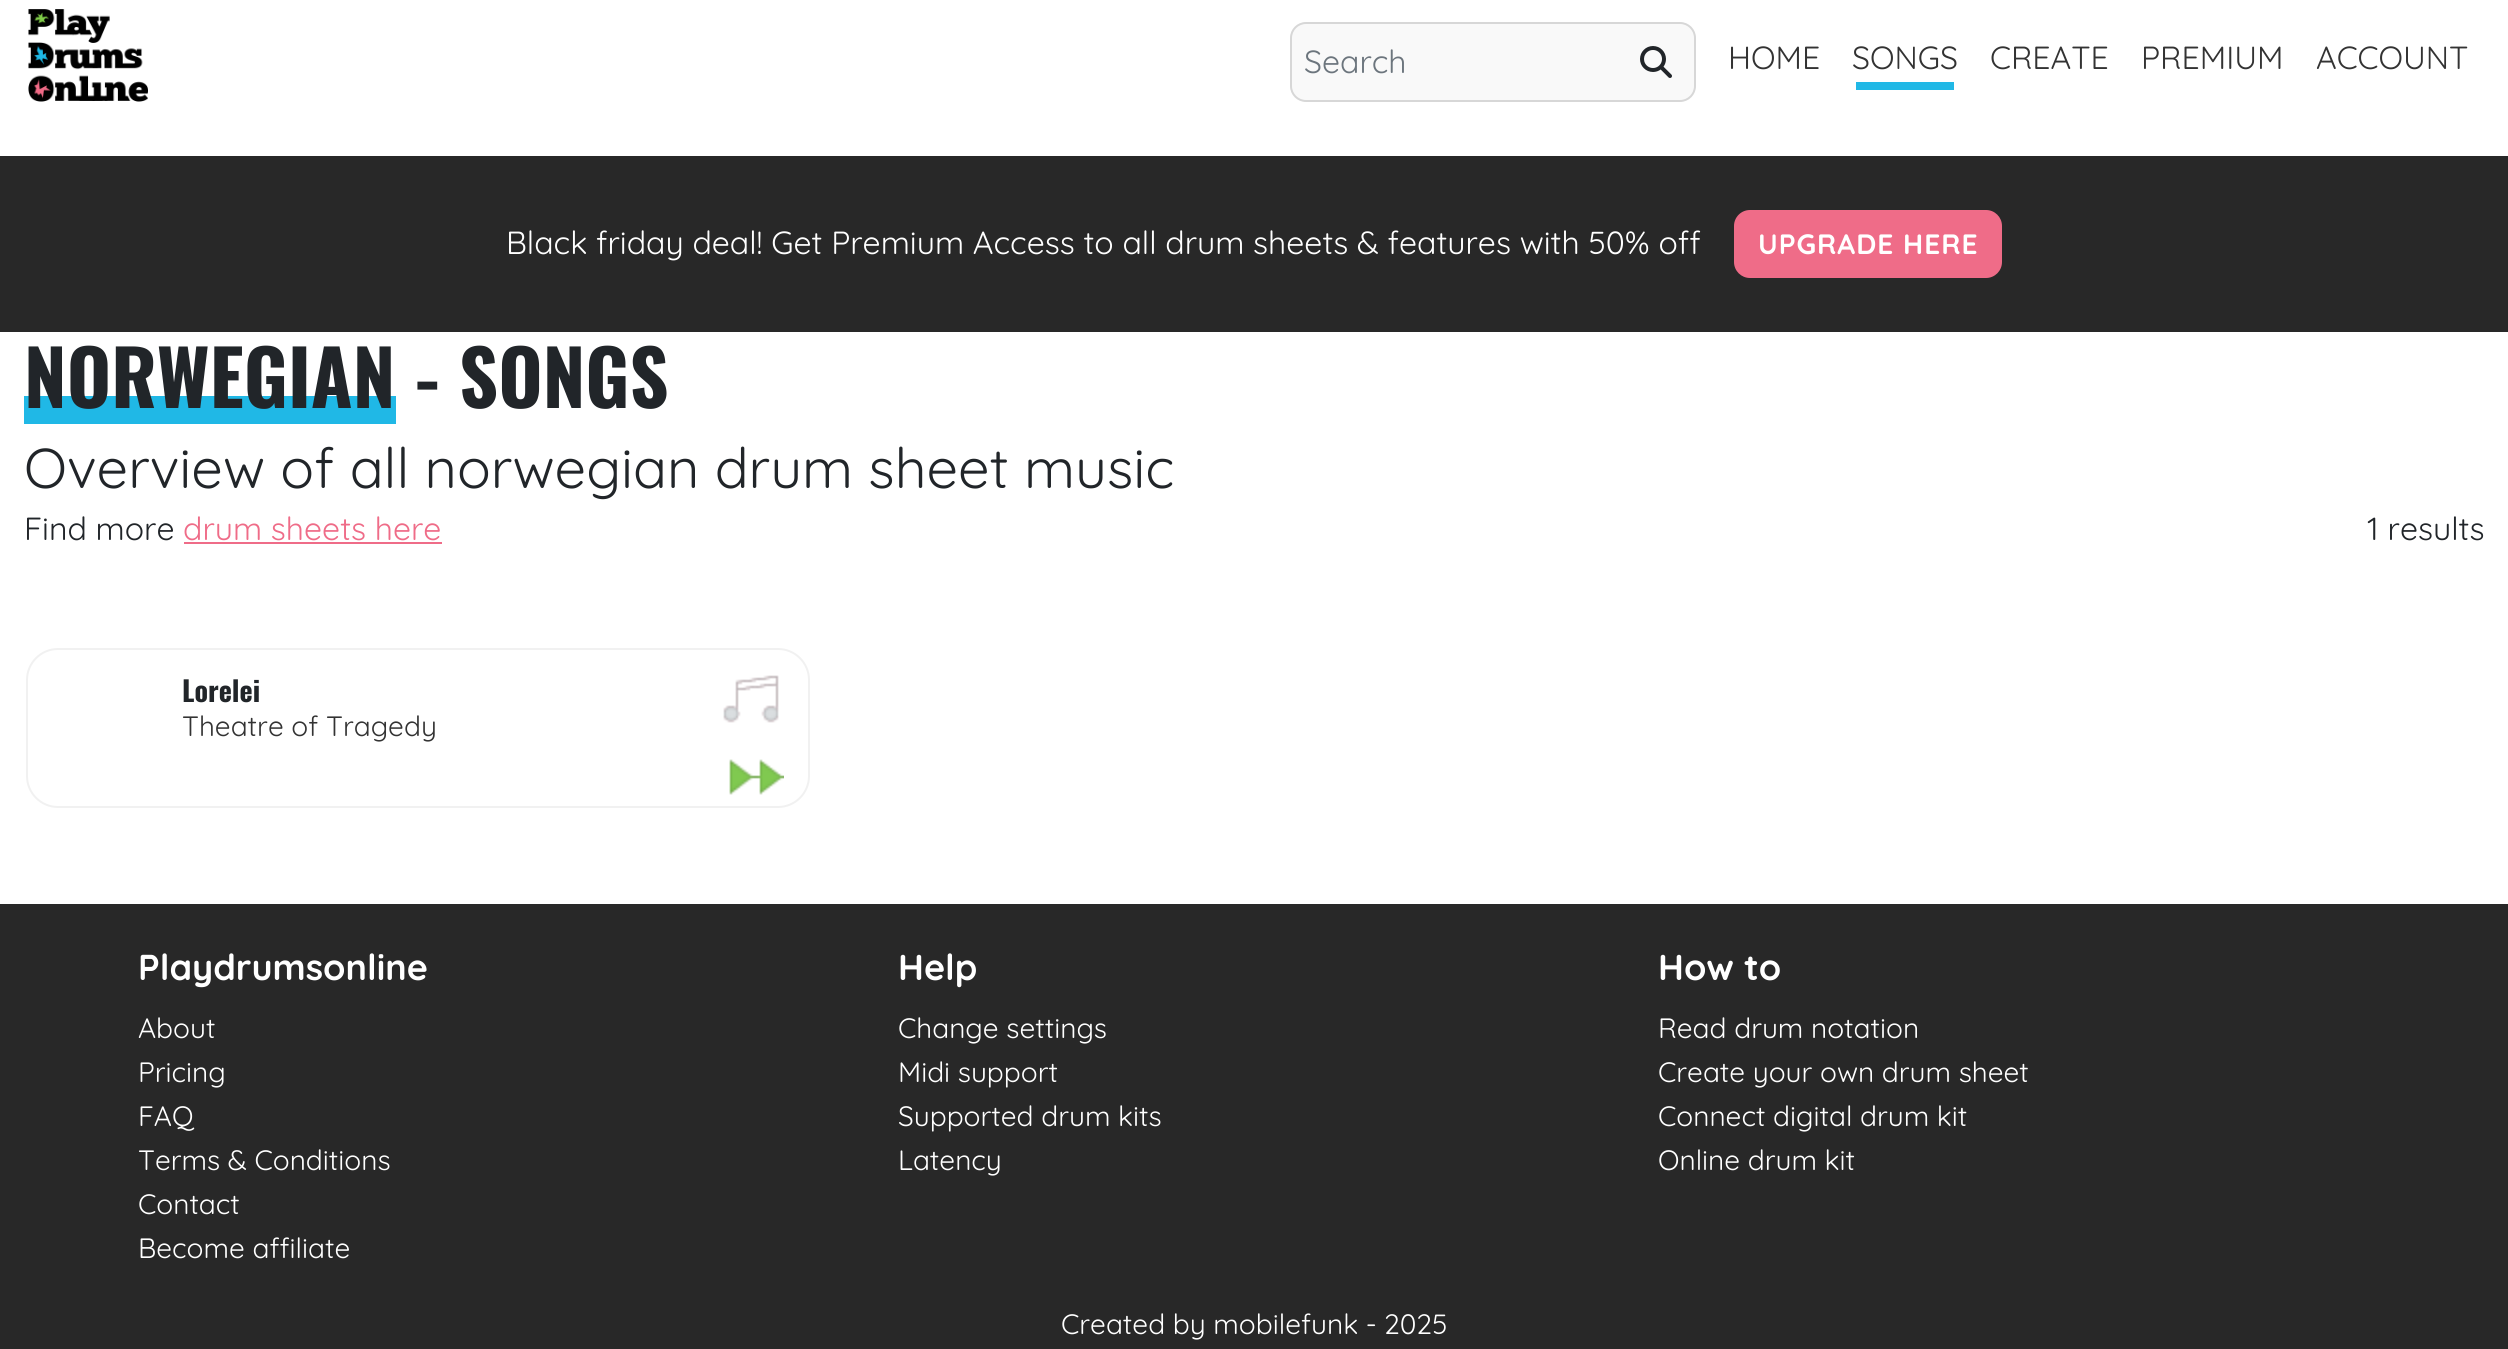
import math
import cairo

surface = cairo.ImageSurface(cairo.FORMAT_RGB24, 2508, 1349)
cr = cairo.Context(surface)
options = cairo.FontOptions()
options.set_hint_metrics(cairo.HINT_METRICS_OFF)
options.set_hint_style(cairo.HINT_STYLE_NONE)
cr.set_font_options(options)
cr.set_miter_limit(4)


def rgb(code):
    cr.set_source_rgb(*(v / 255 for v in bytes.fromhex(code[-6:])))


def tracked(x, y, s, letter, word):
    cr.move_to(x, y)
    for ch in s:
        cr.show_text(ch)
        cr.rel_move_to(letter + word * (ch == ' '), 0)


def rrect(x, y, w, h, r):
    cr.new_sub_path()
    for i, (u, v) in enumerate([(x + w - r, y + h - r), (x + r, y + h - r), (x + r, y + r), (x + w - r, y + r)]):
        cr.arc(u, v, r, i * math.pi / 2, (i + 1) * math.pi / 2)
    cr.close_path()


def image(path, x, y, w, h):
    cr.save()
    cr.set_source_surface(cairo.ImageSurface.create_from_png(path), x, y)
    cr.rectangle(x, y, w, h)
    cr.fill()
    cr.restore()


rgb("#ffffff")
cr.paint()
image("img/1.png", 28, 9, 120, 93)
rgb("#f9f9f9")
rrect(1291, 23, 404, 78, 15)
cr.fill_preserve()
rgb("#d7d7d7")
cr.stroke()
image("img/2.png", 1640, 46, 32, 32)
rgb("#20b8e6")
cr.rectangle(1856, 82, 98, 8)
cr.fill()
rgb("#282828")
cr.rectangle(0, 156, 2508, 176)
cr.fill()
rgb("#ef6c88")
rrect(1734, 210, 268, 68, 16)
cr.fill()
rgb("#20b8e6")
cr.rectangle(24, 396, 372, 28)
cr.fill()
rgb("#ef6c88")
cr.rectangle(184, 542, 258, 2)
cr.fill()
rrect(27, 649, 782, 158, 31)
rgb("#f1f1f1")
cr.stroke()
image("img/3.png", 723, 675, 56, 48)
image("img/4.png", 729, 759, 55, 36)
rgb("#282828")
cr.rectangle(0, 904, 2508, 445)
cr.fill()
cr.select_font_face("Quicksand")
cr.set_font_size(32)
rgb("#6c757d")
cr.move_to(1304, 73)
cr.show_text("Search")
rgb("#333333")
for x, y, s in [
    (1728, 69, "HOME"),
    (1852, 69, "SONGS"),
    (1990, 69, "CREATE"),
    (2141, 69, "PREMIUM"),
    (2316, 69, "ACCOUNT"),
]:
    cr.move_to(x, y)
    cr.show_text(s)
rgb("#ffffff")
cr.move_to(506, 254)
cr.show_text("Black friday deal! Get Premium Access to all drum sheets & features with 50% off")
cr.select_font_face("Quicksand", cairo.FONT_SLANT_NORMAL, cairo.FONT_WEIGHT_BOLD)
cr.set_font_size(28)
tracked(1758, 254, "UPGRADE HERE", 1, 0)
cr.select_font_face("Oswald", cairo.FONT_SLANT_NORMAL, cairo.FONT_WEIGHT_BOLD)
cr.set_font_size(76)
rgb("#212529")
cr.move_to(24, 408)
cr.show_text("NORWEGIAN")
cr.move_to(415, 408)
cr.show_text("- SONGS")
cr.select_font_face("Quicksand")
cr.set_font_size(56)
cr.move_to(24, 488)
cr.show_text("Overview of all norwegian drum sheet music")
cr.set_font_size(32)
cr.move_to(24, 540)
cr.show_text("Find more")
rgb("#ef6c88")
cr.move_to(183, 540)
cr.show_text("drum sheets here")
rgb("#212529")
cr.move_to(2367, 540)
cr.show_text("1 results")
cr.select_font_face("Oswald", cairo.FONT_SLANT_NORMAL, cairo.FONT_WEIGHT_BOLD)
cr.set_font_size(28)
cr.move_to(182, 702)
cr.show_text("Lorelei")
cr.select_font_face("Quicksand")
rgb("#333333")
cr.move_to(182, 736)
cr.show_text("Theatre of Tragedy")
cr.select_font_face("Quicksand", cairo.FONT_SLANT_NORMAL, cairo.FONT_WEIGHT_BOLD)
cr.set_font_size(36)
rgb("#ffffff")
cr.move_to(138, 980)
cr.show_text("Playdrumsonline")
cr.select_font_face("Quicksand")
cr.set_font_size(28)
for x, y, s in [
    (138, 1038, "About"),
    (138, 1082, "Pricing"),
    (138, 1126, "FAQ"),
    (138, 1170, "Terms & Conditions"),
    (138, 1214, "Contact"),
    (138, 1258, "Become affiliate"),
]:
    cr.move_to(x, y)
    cr.show_text(s)
cr.select_font_face("Quicksand", cairo.FONT_SLANT_NORMAL, cairo.FONT_WEIGHT_BOLD)
cr.set_font_size(36)
cr.move_to(898, 980)
cr.show_text("Help")
cr.select_font_face("Quicksand")
cr.set_font_size(28)
for x, y, s in [
    (898, 1038, "Change settings"),
    (898, 1082, "Midi support"),
    (898, 1126, "Supported drum kits"),
    (898, 1170, "Latency"),
]:
    cr.move_to(x, y)
    cr.show_text(s)
cr.select_font_face("Quicksand", cairo.FONT_SLANT_NORMAL, cairo.FONT_WEIGHT_BOLD)
cr.set_font_size(36)
cr.move_to(1658, 980)
cr.show_text("How to")
cr.select_font_face("Quicksand")
cr.set_font_size(28)
for x, y, s in [
    (1658, 1038, "Read drum notation"),
    (1658, 1082, "Create your own drum sheet"),
    (1658, 1126, "Connect digital drum kit"),
    (1658, 1170, "Online drum kit"),
    (1061, 1334, "Created by mobilefunk - 2025"),
]:
    cr.move_to(x, y)
    cr.show_text(s)
surface.write_to_png("page.png")
